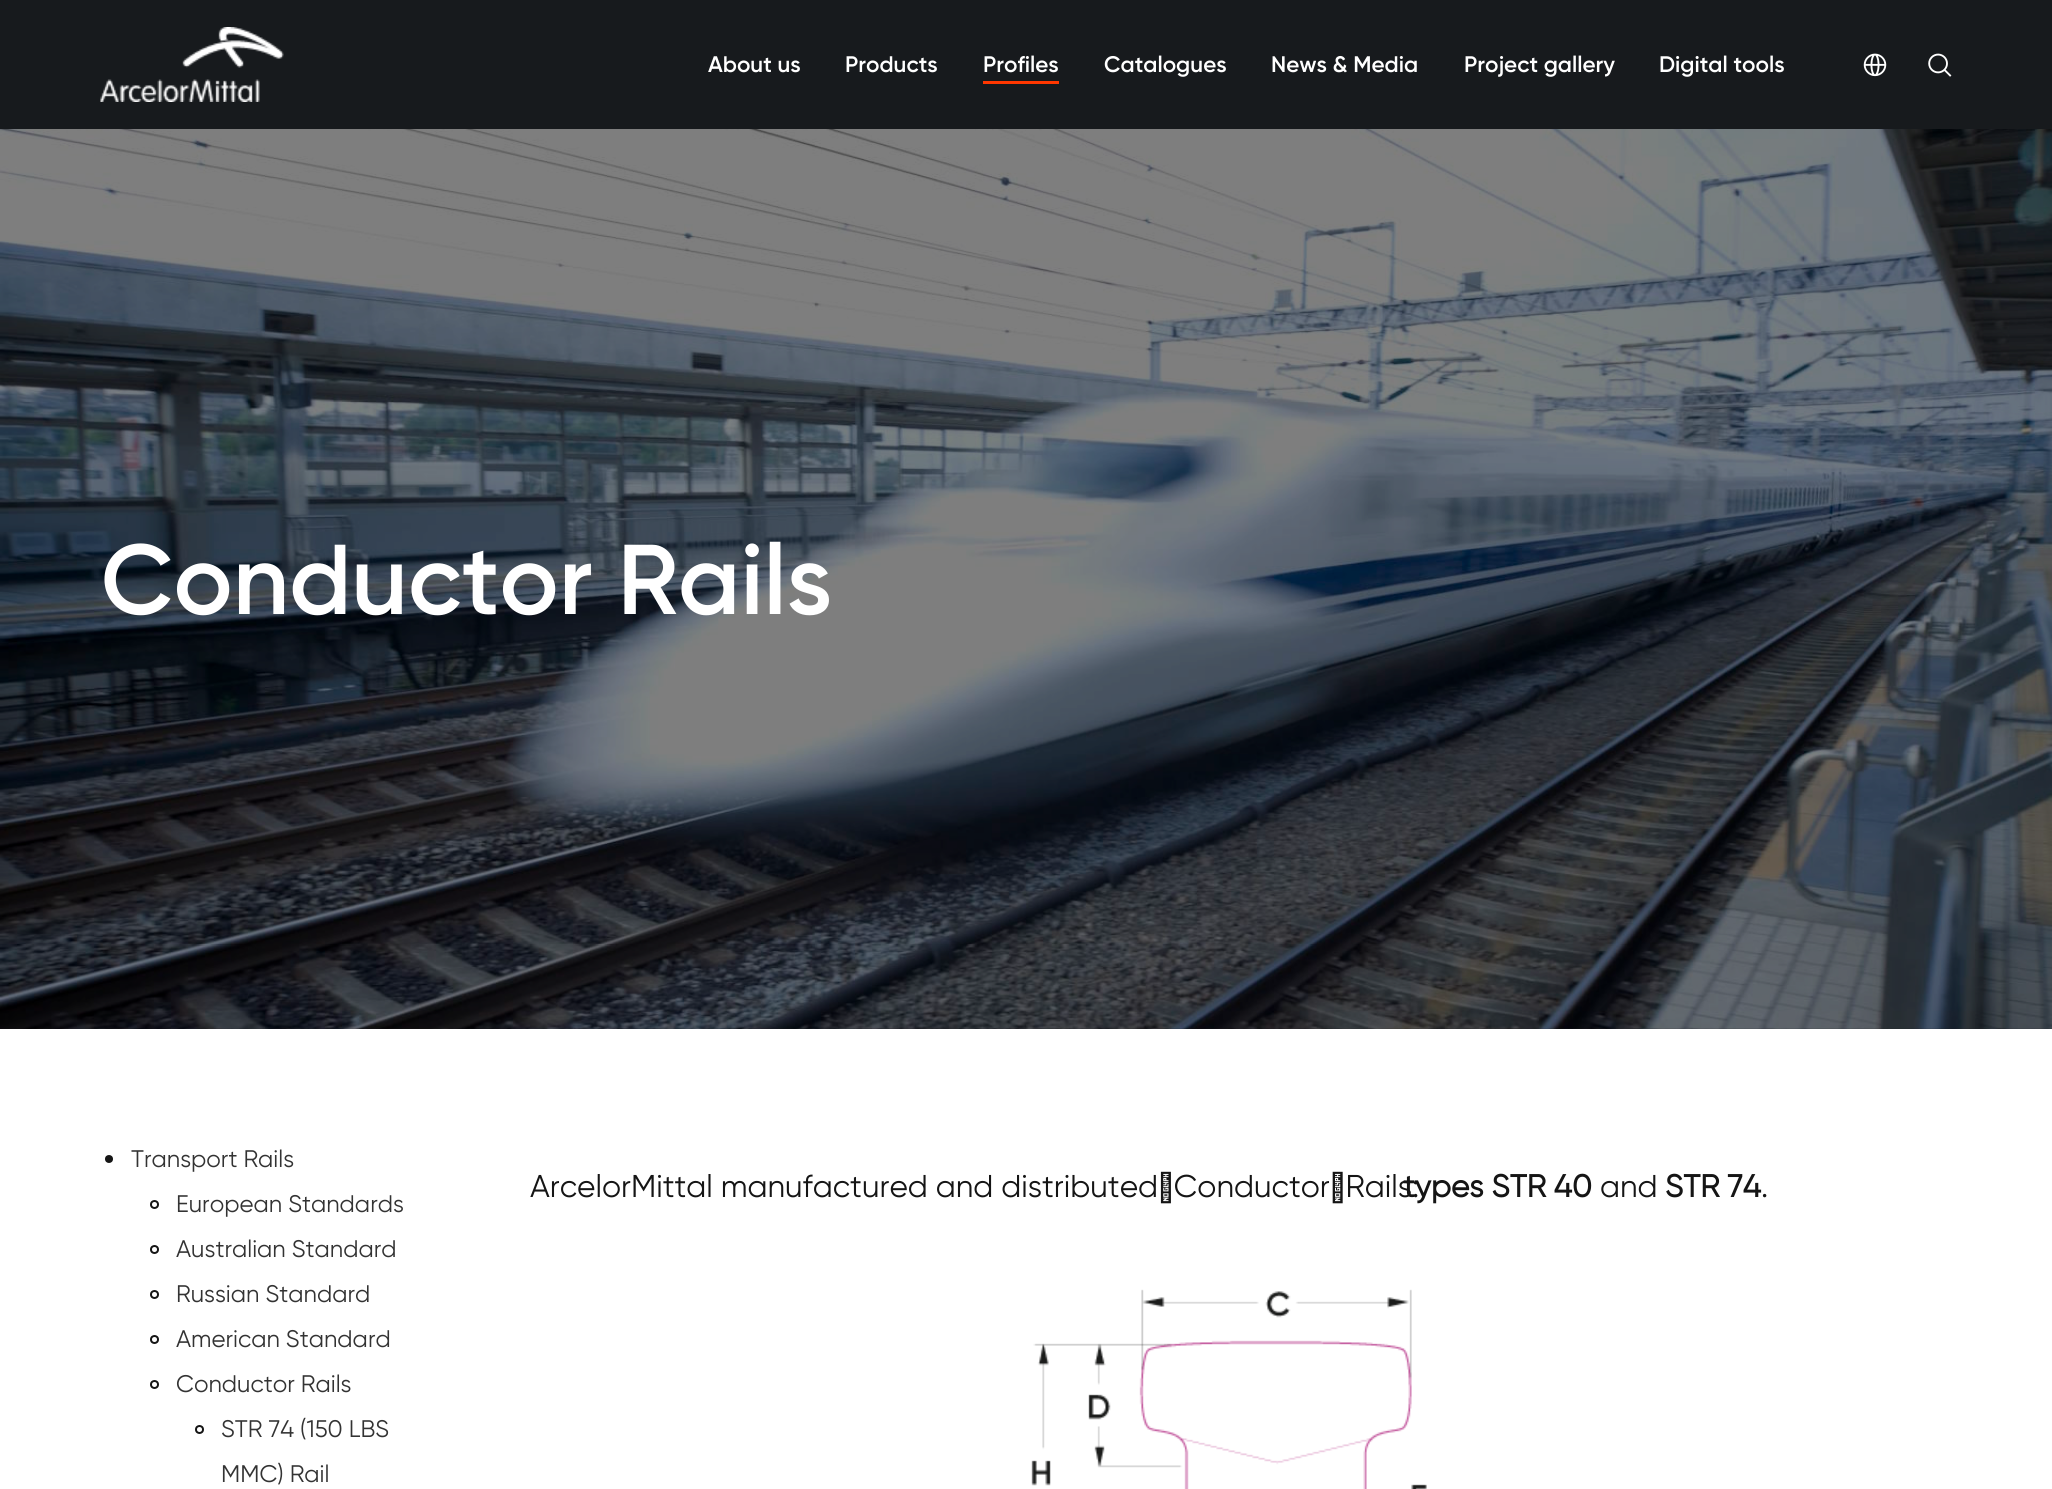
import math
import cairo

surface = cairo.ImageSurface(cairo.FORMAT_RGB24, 2052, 1489)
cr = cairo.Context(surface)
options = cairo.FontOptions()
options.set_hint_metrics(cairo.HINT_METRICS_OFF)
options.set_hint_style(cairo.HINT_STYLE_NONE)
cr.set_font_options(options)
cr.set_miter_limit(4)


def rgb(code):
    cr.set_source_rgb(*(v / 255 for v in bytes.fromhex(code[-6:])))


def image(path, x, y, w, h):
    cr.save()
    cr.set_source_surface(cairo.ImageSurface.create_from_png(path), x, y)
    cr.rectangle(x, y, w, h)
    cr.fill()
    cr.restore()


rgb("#171a1d")
cr.paint()
image("img/1.png", 100, 27, 184, 75)
rgb("#ff3700")
cr.rectangle(983, 81, 76, 3)
cr.fill()
image("img/2.png", 1863, 53, 24, 24)
image("img/3.png", 1928, 53, 24, 24)
image("img/4.png", 0, 129, 2052, 900)
rgb("#ffffff")
cr.rectangle(0, 1029, 2052, 460)
cr.fill()
rgb("#151515")
cr.arc(109, 1159, 4, 0, 2 * math.pi)
cr.fill()
cr.arc(154.5, 1204.5, 3.5, 0, 2 * math.pi)
cr.stroke()
cr.arc(154.5, 1249.5, 3.5, 0, 2 * math.pi)
cr.stroke()
cr.arc(154.5, 1294.5, 3.5, 0, 2 * math.pi)
cr.stroke()
cr.arc(154.5, 1339.5, 3.5, 0, 2 * math.pi)
cr.stroke()
cr.arc(154.5, 1384.5, 3.5, 0, 2 * math.pi)
cr.stroke()
cr.arc(199.5, 1429.5, 3.5, 0, 2 * math.pi)
cr.stroke()
image("img/5.png", 1031, 1289, 396, 200)
cr.select_font_face("Gilroy SemiBold")
cr.set_font_size(22.5)
rgb("#ffffff")
for x, y, s in [
    (708, 72, "About us"),
    (845, 72, "Products"),
    (983, 72, "Profiles"),
    (1104, 72, "Catalogues"),
    (1271, 72, "News & Media"),
    (1464, 72, "Project gallery"),
    (1659, 72, "Digital tools"),
]:
    cr.move_to(x, y)
    cr.show_text(s)
cr.set_font_size(99)
cr.move_to(101, 614)
cr.show_text("Conductor Rails")
cr.select_font_face("Gilroy")
cr.set_font_size(24)
rgb("#333333")
for x, y, s in [
    (131, 1167, "Transport Rails"),
    (176, 1212, "European Standards"),
    (176, 1257, "Australian Standard"),
    (176, 1302, "Russian Standard"),
    (176, 1347, "American Standard"),
    (176, 1392, "Conductor Rails"),
    (221, 1437, "STR 74 (150 LBS"),
    (221, 1482, "MMC) Rail"),
]:
    cr.move_to(x, y)
    cr.show_text(s)
cr.set_font_size(31.5)
rgb("#151515")
cr.move_to(530, 1197)
cr.show_text("ArcelorMittal manufactured and distributed Conductor Rails:")
cr.select_font_face("Gilroy", cairo.FONT_SLANT_NORMAL, cairo.FONT_WEIGHT_BOLD)
cr.move_to(1403, 1197)
cr.show_text("types STR 40")
cr.select_font_face("Gilroy")
cr.move_to(1600, 1197)
cr.show_text("and")
cr.select_font_face("Gilroy", cairo.FONT_SLANT_NORMAL, cairo.FONT_WEIGHT_BOLD)
cr.move_to(1665, 1197)
cr.show_text("STR 74")
cr.select_font_face("Gilroy")
cr.move_to(1761, 1197)
cr.show_text(".")
surface.write_to_png("page.png")
